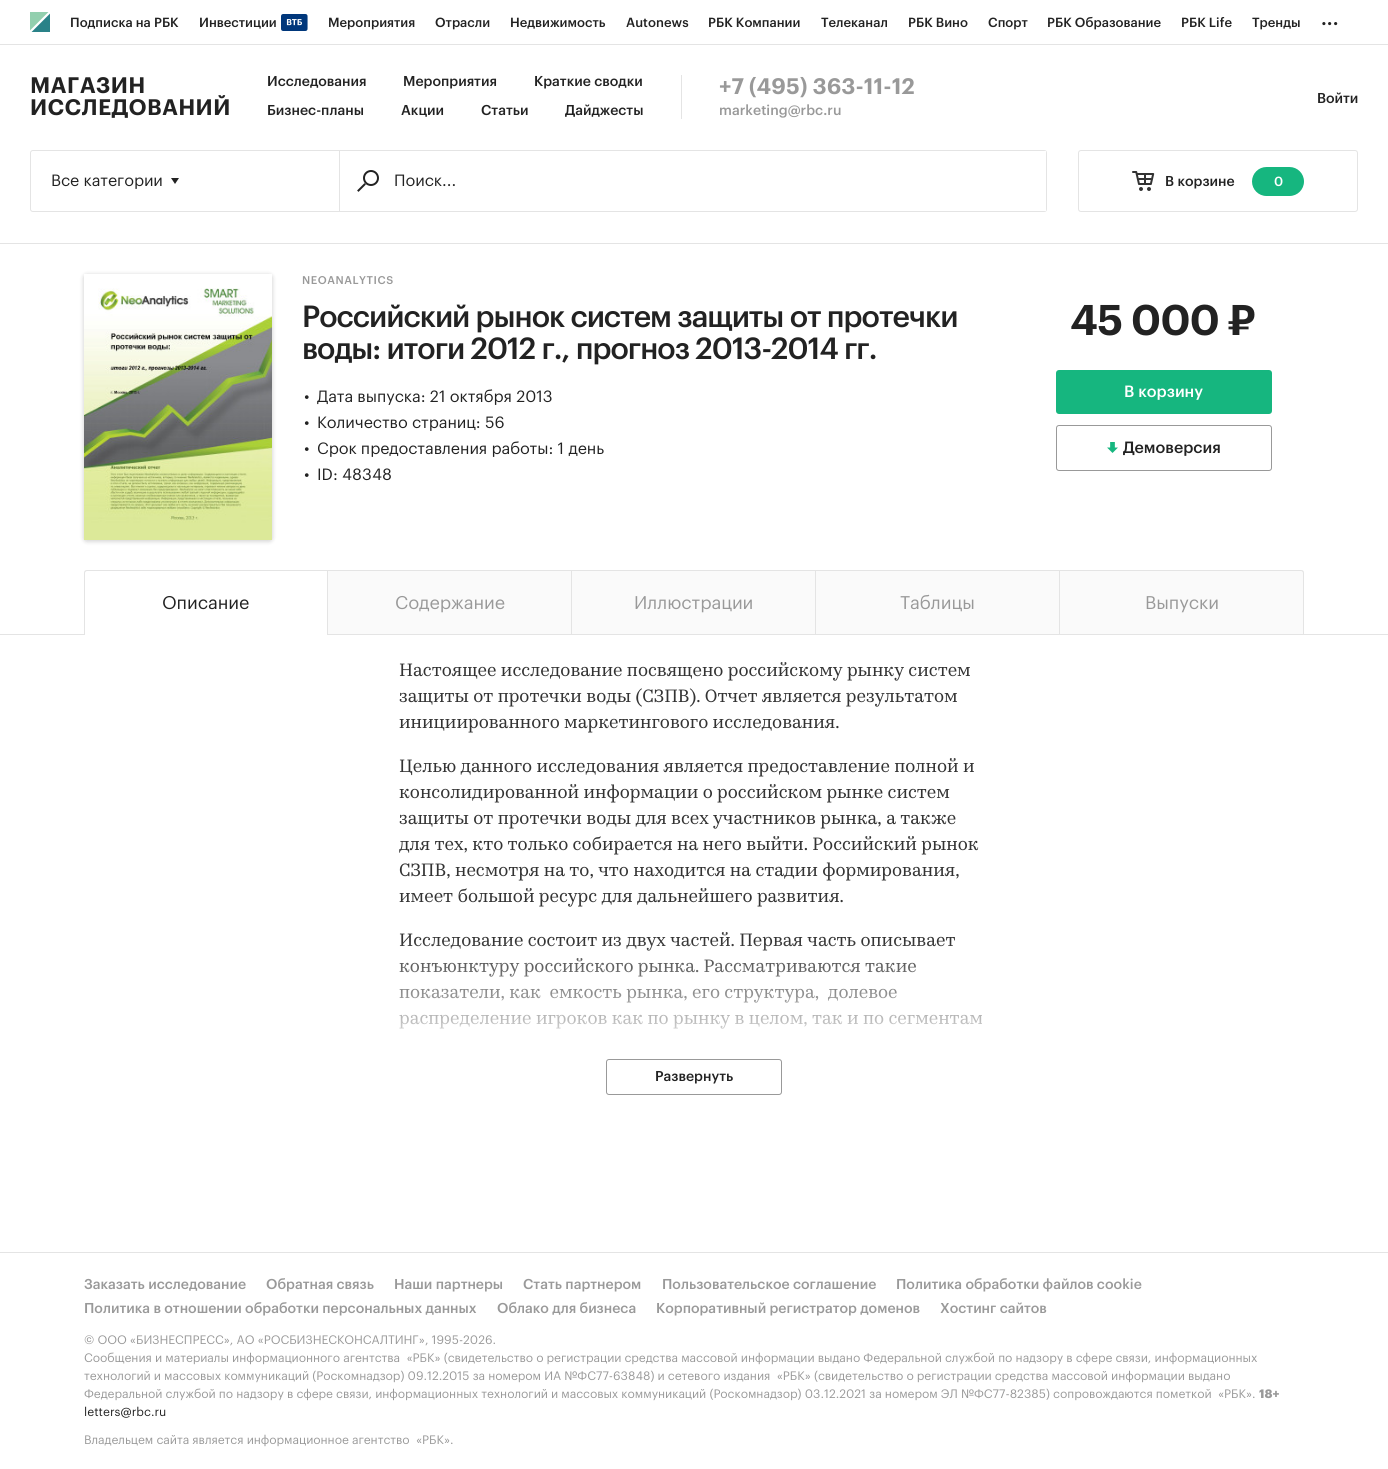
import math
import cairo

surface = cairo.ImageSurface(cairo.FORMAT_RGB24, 1388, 1469)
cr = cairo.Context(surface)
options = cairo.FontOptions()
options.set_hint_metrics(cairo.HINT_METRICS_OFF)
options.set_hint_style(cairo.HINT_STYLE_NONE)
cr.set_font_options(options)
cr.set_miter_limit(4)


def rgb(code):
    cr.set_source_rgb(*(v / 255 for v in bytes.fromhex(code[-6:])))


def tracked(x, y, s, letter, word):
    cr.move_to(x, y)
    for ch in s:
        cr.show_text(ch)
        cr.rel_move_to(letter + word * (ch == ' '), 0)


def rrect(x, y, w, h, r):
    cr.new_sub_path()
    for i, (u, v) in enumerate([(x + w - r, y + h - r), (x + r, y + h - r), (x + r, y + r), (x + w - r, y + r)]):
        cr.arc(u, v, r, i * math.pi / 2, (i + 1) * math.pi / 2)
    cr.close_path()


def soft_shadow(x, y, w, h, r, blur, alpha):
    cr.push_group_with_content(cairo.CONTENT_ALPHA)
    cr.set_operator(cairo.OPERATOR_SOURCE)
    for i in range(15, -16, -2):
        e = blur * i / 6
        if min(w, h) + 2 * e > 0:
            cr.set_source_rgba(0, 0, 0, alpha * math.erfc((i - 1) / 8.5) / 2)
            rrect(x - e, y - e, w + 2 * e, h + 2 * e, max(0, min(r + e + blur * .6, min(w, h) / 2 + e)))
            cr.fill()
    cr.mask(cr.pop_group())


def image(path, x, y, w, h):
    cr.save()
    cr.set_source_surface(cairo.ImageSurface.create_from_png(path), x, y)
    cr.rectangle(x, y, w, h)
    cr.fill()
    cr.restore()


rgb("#ffffff")
cr.paint()
rgb("#e4e4e4")
cr.rectangle(0, 44, 1388, 1)
cr.fill()
image("img/1.png", 30, 12, 20, 20)
image("img/2.png", 281, 14, 27, 17)
cr.rectangle(681, 75, 1, 44)
cr.fill()
cr.rectangle(0, 243, 1388, 1)
cr.fill()
cr.new_path()
cr.move_to(33, 150.5)
cr.line_to(339.5, 150.5)
cr.line_to(339.5, 211.5)
cr.line_to(33, 211.5)
cr.curve_to(31.5, 211.5, 30.5, 210.5, 30.5, 209)
cr.line_to(30.5, 153)
cr.curve_to(30.5, 151.5, 31.5, 150.5, 33, 150.5)
cr.close_path()
cr.set_line_width(1)
cr.stroke()
rgb("#222222")
cr.new_path()
cr.move_to(171, 178)
cr.line_to(179, 178)
cr.line_to(175, 184)
cr.close_path()
cr.fill()
rgb("#e4e4e4")
cr.set_fill_rule(cairo.FILL_RULE_EVEN_ODD)
cr.new_path()
cr.move_to(340, 150)
cr.line_to(1044, 150)
cr.curve_to(1046, 150, 1047, 151, 1047, 153)
cr.line_to(1047, 209)
cr.curve_to(1047, 211, 1046, 212, 1044, 212)
cr.line_to(340, 212)
cr.close_path()
cr.move_to(340, 151)
cr.line_to(1044, 151)
cr.curve_to(1045, 151, 1046, 152, 1046, 153)
cr.line_to(1046, 209)
cr.curve_to(1046, 210, 1045, 211, 1044, 211)
cr.line_to(340, 211)
cr.close_path()
cr.fill()
rgb("#ffffff")
cr.rectangle(1044, 151, 2, 60)
cr.fill()
cr.arc(371, 178, 7, 0, 2 * math.pi)
rgb("#222222")
cr.set_line_width(2)
cr.stroke()
cr.new_path()
cr.move_to(364.5, 184.5)
cr.line_to(358.5, 190.5)
cr.set_line_cap(cairo.LINE_CAP_SQUARE)
cr.stroke()
rrect(1078.5, 150.5, 279, 61, 2.5)
rgb("#e4e4e4")
cr.set_line_width(1)
cr.set_line_cap(cairo.LINE_CAP_BUTT)
cr.stroke()
image("img/3.png", 1132, 171, 23, 20)
rgb("#16b67f")
rrect(1252, 167, 52, 29, 14.5)
cr.fill()
rgb("#000000")
soft_shadow(83, 274, 190, 268, 4, 2, 0.15)
image("img/4.png", 84, 274, 188, 266)
rgb("#16b67f")
rrect(1056, 370, 216, 44, 3)
cr.fill()
rrect(1056.5, 425.5, 215, 45, 2.5)
rgb("#999999")
cr.stroke()
image("img/5.png", 1107, 442, 11, 11)
rgb("#e4e4e4")
cr.rectangle(0, 634, 1388, 1)
cr.fill()
rgb("#ffffff")
cr.new_path()
cr.move_to(87, 570)
cr.line_to(328, 570)
cr.line_to(328, 635)
cr.line_to(84, 635)
cr.line_to(84, 573)
cr.curve_to(84, 571.5, 85.5, 570, 87, 570)
cr.close_path()
cr.fill()
rgb("#e4e4e4")
cr.new_path()
cr.move_to(87, 570)
cr.line_to(328, 570)
cr.line_to(328, 635)
cr.line_to(84, 635)
cr.line_to(84, 573)
cr.curve_to(84, 571, 85, 570, 87, 570)
cr.close_path()
cr.move_to(87, 571)
cr.line_to(327, 571)
cr.line_to(327, 635)
cr.line_to(85, 635)
cr.line_to(85, 573)
cr.curve_to(85, 572, 86, 571, 87, 571)
cr.close_path()
cr.fill()
for x, y, w, h, color in [
    (328, 571, 243, 63, "#fafafa"),
    (328, 570, 732, 1, "#e4e4e4"),
    (571, 570, 1, 65, "#e4e4e4"),
    (572, 571, 243, 63, "#fafafa"),
    (815, 570, 1, 65, "#e4e4e4"),
    (816, 571, 243, 63, "#fafafa"),
    (1059, 570, 1, 65, "#e4e4e4"),
]:
    rgb(color)
    cr.rectangle(x, y, w, h)
    cr.fill()
rgb("#fafafa")
cr.new_path()
cr.move_to(1060, 570)
cr.line_to(1301, 570)
cr.curve_to(1302.5, 570, 1304, 571.5, 1304, 573)
cr.line_to(1304, 635)
cr.line_to(1060, 635)
cr.close_path()
cr.fill()
rgb("#e4e4e4")
cr.new_path()
cr.move_to(1060, 570)
cr.line_to(1301, 570)
cr.curve_to(1303, 570, 1304, 571, 1304, 573)
cr.line_to(1304, 635)
cr.line_to(1060, 635)
cr.close_path()
cr.move_to(1060, 571)
cr.line_to(1301, 571)
cr.curve_to(1302, 571, 1303, 572, 1303, 573)
cr.line_to(1303, 634)
cr.line_to(1060, 634)
cr.close_path()
cr.fill()
rrect(606.5, 1059.5, 175, 35, 2.5)
rgb("#999999")
cr.stroke()
rgb("#e4e4e4")
cr.rectangle(0, 1252, 1388, 1)
cr.fill()
cr.select_font_face("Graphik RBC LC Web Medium")
cr.set_font_size(13)
rgb("#222222")
for x, y, s in [
    (70, 27, "Подписка на РБК"),
    (199, 27, "Инвестиции"),
    (328, 27, "Мероприятия"),
    (435, 27, "Отрасли"),
    (510, 27, "Недвижимость"),
    (626, 27, "Autonews"),
    (708, 27, "РБК Компании"),
    (821, 27, "Телеканал"),
    (908, 27, "РБК Вино"),
    (988, 27, "Спорт"),
    (1047, 27, "РБК Образование"),
    (1181, 27, "РБК Life"),
    (1252, 27, "Тренды"),
]:
    cr.move_to(x, y)
    cr.show_text(s)
cr.set_font_size(20)
cr.move_to(1321, 25)
cr.show_text("...")
cr.select_font_face("Graphik RBC LC Web SemiBold")
cr.set_font_size(22)
tracked(30, 93, "МАГАЗИН", 0.5, 0)
tracked(30, 115, "ИССЛЕДОВАНИЙ", 0.5, 0)
cr.select_font_face("Graphik RBC LC Web Medium")
cr.set_font_size(14)
for x, y, s in [
    (267, 86, "Исследования"),
    (403, 86, "Мероприятия"),
    (534, 86, "Краткие сводки"),
    (267, 115, "Бизнес-планы"),
    (401, 115, "Акции"),
    (481, 115, "Статьи"),
    (565, 115, "Дайджесты"),
]:
    cr.move_to(x, y)
    cr.show_text(s)
cr.select_font_face("Graphik RBC LC Web SemiBold")
cr.set_font_size(22)
rgb("#999999")
cr.move_to(719, 94)
cr.show_text("+7 (495) 363-11-12")
cr.select_font_face("Graphik RBC LC Web Medium")
cr.set_font_size(14)
cr.move_to(719, 115)
cr.show_text("marketing@rbc.ru")
rgb("#222222")
cr.move_to(1317, 103)
cr.show_text("Войти")
cr.select_font_face("Graphik RBC LC Web")
cr.set_font_size(16)
cr.move_to(51, 186)
cr.show_text("Все категории")
cr.move_to(394, 186)
cr.show_text("Поиск...")
cr.select_font_face("Graphik RBC LC Web Medium")
cr.set_font_size(14)
cr.move_to(1165, 186)
cr.show_text("В корзине")
cr.set_font_size(13)
rgb("#ffffff")
cr.move_to(1274, 186)
cr.show_text("0")
cr.set_font_size(11)
rgb("#999999")
tracked(302, 284, "NEOANALYTICS", 0.5, 0)
cr.set_font_size(30)
rgb("#222222")
tracked(302, 327, "Российский рынок систем защиты от протечки", -1, 0)
tracked(302, 359, "воды: итоги 2012 г., прогноз 2013-2014 гг.", -1, 0)
cr.select_font_face("Graphik RBC LC Web")
cr.set_font_size(16)
for x, y, s in [
    (304, 402, "•"),
    (317, 402, "Дата выпуска: 21 октября 2013"),
    (304, 428, "•"),
    (317, 428, "Количество страниц: 56"),
    (304, 454, "•"),
    (317, 454, "Срок предоставления работы: 1 день"),
    (304, 480, "•"),
    (317, 480, "ID: 48348"),
]:
    cr.move_to(x, y)
    cr.show_text(s)
cr.select_font_face("Graphik RBC LC Web SemiBold")
cr.set_font_size(42)
tracked(1070, 335, "45 000 ₽", -1, 0)
cr.select_font_face("Graphik RBC LC Web Medium")
cr.set_font_size(16)
rgb("#ffffff")
cr.move_to(1124, 397)
cr.show_text("В корзину")
rgb("#222222")
cr.move_to(1123, 453)
cr.show_text("Демоверсия")
cr.select_font_face("Graphik RBC LC Web")
cr.set_font_size(18)
cr.move_to(162, 609)
cr.show_text("Описание")
rgb("#999999")
for x, y, s in [
    (395, 609, "Содержание"),
    (634, 609, "Иллюстрации"),
    (900, 609, "Таблицы"),
    (1145, 609, "Выпуски"),
]:
    cr.move_to(x, y)
    cr.show_text(s)
cr.select_font_face("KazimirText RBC")
rgb("#333333")
for x, y, s in [
    (399, 676, "Настоящее исследование посвящено российскому рынку систем"),
    (399, 702, "защиты от протечки воды (СЗПВ). Отчет является результатом"),
    (399, 728, "инициированного маркетингового исследования."),
    (399, 772, "Целью данного исследования является предоставление полной и"),
    (399, 798, "консолидированной информации о российском рынке систем"),
    (399, 824, "защиты от протечки воды для всех участников рынка, а также"),
    (399, 850, "для тех, кто только собирается на него выйти. Российский рынок"),
    (399, 876, "СЗПВ, несмотря на то, что находится на стадии формирования,"),
    (399, 902, "имеет большой ресурс для дальнейшего развития."),
    (399, 946, "Исследование состоит из двух частей. Первая часть описывает"),
    (399, 972, "конъюнктуру российского рынка. Рассматриваются такие"),
    (399, 998, "показатели, как  емкость рынка, его структура,  долевое"),
    (399, 1024, "распределение игроков как по рынку в целом, так и по сегментам"),
]:
    cr.move_to(x, y)
    cr.show_text(s)
gradient = cairo.LinearGradient(694, 659, 694, 1059)
gradient.add_color_stop_rgba(0, 1, 1, 1, 0)
gradient.add_color_stop_rgba(0.7, 1, 1, 1, 0)
gradient.add_color_stop_rgba(1, 1, 1, 1, 1)
cr.set_source(gradient)
cr.rectangle(399, 942, 584, 87)
cr.fill()
cr.select_font_face("Graphik RBC LC Web Medium")
cr.set_font_size(14)
rgb("#222222")
cr.move_to(655, 1081)
cr.show_text("Развернуть")
rgb("#999999")
for x, y, s in [
    (84, 1289, "Заказать исследование"),
    (266, 1289, "Обратная связь"),
    (394, 1289, "Наши партнеры"),
    (523, 1289, "Стать партнером"),
    (662, 1289, "Пользовательское соглашение"),
    (896, 1289, "Политика обработки файлов cookie"),
    (84, 1313, "Политика в отношении обработки персональных данных"),
    (497, 1313, "Облако для бизнеса"),
    (656, 1313, "Корпоративный регистратор доменов"),
    (940, 1313, "Хостинг сайтов"),
]:
    cr.move_to(x, y)
    cr.show_text(s)
cr.select_font_face("Graphik RBC LC Web")
cr.set_font_size(12)
for x, y, s in [
    (84, 1344, "© ООО «БИЗНЕСПРЕСС», АО «РОСБИЗНЕСКОНСАЛТИНГ», 1995-2026."),
    (84, 1362, "Сообщения и материалы информационного агентства  «РБК» (свидетельство о регистрации средства массовой информации выдано Федеральной службой по надзору в сфере связи, информационных"),
    (84, 1380, "технологий и массовых коммуникаций (Роскомнадзор) 09.12.2015 за номером ИА №ФС77-63848) и сетевого издания  «РБК» (свидетельство о регистрации средства массовой информации выдано"),
    (84, 1398, "Федеральной службой по надзору в сфере связи, информационных технологий и массовых коммуникаций (Роскомнадзор) 03.12.2021 за номером ЭЛ №ФС77-82385) сопровождаются пометкой  «РБК»."),
]:
    cr.move_to(x, y)
    cr.show_text(s)
cr.select_font_face("Graphik RBC LC Web", cairo.FONT_SLANT_NORMAL, cairo.FONT_WEIGHT_BOLD)
cr.move_to(1259, 1398)
cr.show_text("18+")
cr.select_font_face("Graphik RBC LC Web")
rgb("#222222")
cr.move_to(84, 1416)
cr.show_text("letters@rbc.ru")
rgb("#999999")
cr.move_to(84, 1444)
cr.show_text("Владельцем сайта является информационное агентство  «РБК».")
surface.write_to_png("page.png")
